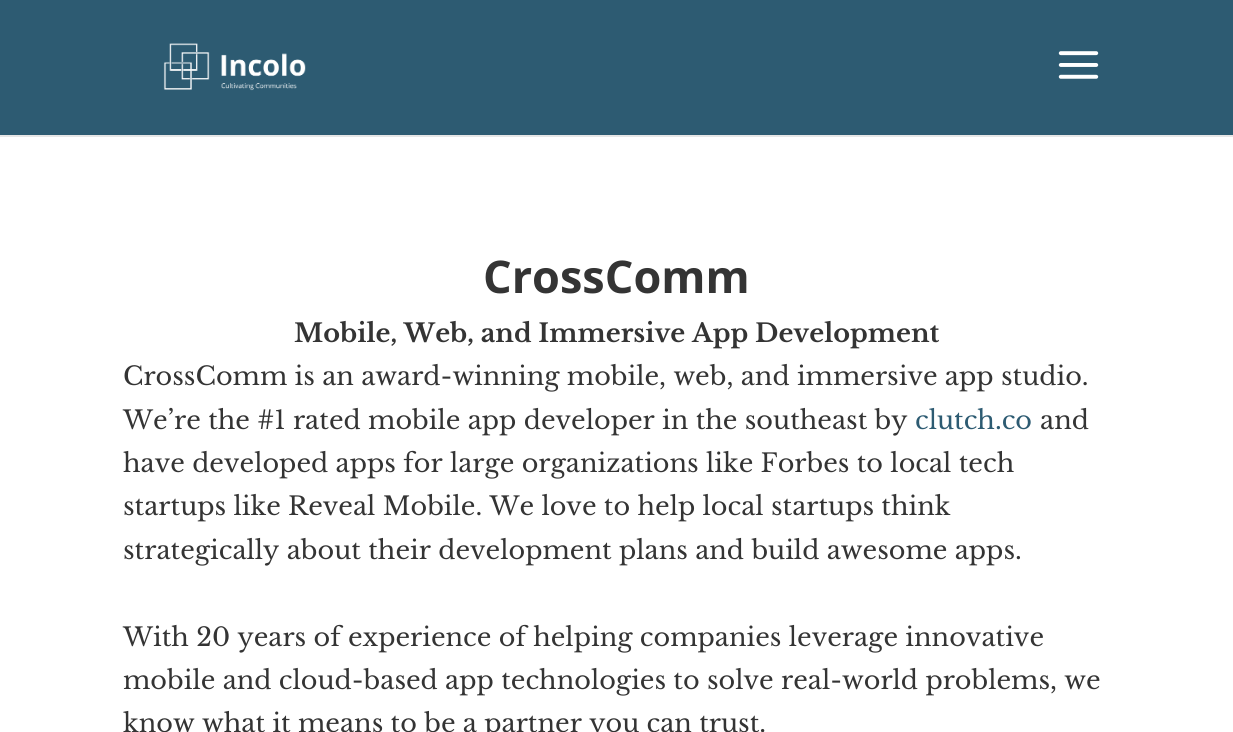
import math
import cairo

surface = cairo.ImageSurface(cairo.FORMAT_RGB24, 1233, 732)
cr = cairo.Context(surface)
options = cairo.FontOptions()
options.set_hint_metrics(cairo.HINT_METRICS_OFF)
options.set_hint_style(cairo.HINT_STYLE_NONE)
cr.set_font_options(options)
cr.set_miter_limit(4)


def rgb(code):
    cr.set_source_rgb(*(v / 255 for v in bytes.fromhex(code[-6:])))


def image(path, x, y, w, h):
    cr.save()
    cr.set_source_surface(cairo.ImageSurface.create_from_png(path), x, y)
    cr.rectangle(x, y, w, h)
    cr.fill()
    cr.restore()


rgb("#ffffff")
cr.paint()
rgb("#e6e6e6")
cr.rectangle(0, 135, 1233, 2)
cr.fill()
rgb("#2d5b72")
cr.rectangle(0, 0, 1233, 135)
cr.fill()
image("img/1.png", 163, 43, 143, 48)
image("img/2.png", 1058, 51, 41, 28)
cr.select_font_face("Open Sans", cairo.FONT_SLANT_NORMAL, cairo.FONT_WEIGHT_BOLD)
cr.set_font_size(45)
rgb("#343434")
cr.move_to(483, 293)
cr.show_text("CrossComm")
cr.select_font_face("Libre Baskerville", cairo.FONT_SLANT_NORMAL, cairo.FONT_WEIGHT_BOLD)
cr.set_font_size(25.5)
cr.move_to(294, 342)
cr.show_text("Mobile, Web, and Immersive App Development")
cr.select_font_face("Libre Baskerville")
cr.move_to(123, 385)
cr.show_text("CrossComm is an award-winning mobile, web, and immersive app studio.")
cr.move_to(123, 429)
cr.show_text("We’re the #1 rated mobile app developer in the southeast by")
rgb("#2d5b72")
cr.move_to(915, 429)
cr.show_text("clutch.co")
rgb("#343434")
for x, y, s in [
    (1040, 429, "and"),
    (123, 472, "have developed apps for large organizations like Forbes to local tech"),
    (123, 515, "startups like Reveal Mobile. We love to help local startups think"),
    (123, 559, "strategically about their development plans and build awesome apps."),
    (123, 646, "With 20 years of experience of helping companies leverage innovative"),
    (123, 689, "mobile and cloud-based app technologies to solve real-world problems, we"),
    (123, 732, "know what it means to be a partner you can trust."),
]:
    cr.move_to(x, y)
    cr.show_text(s)
surface.write_to_png("page.png")
